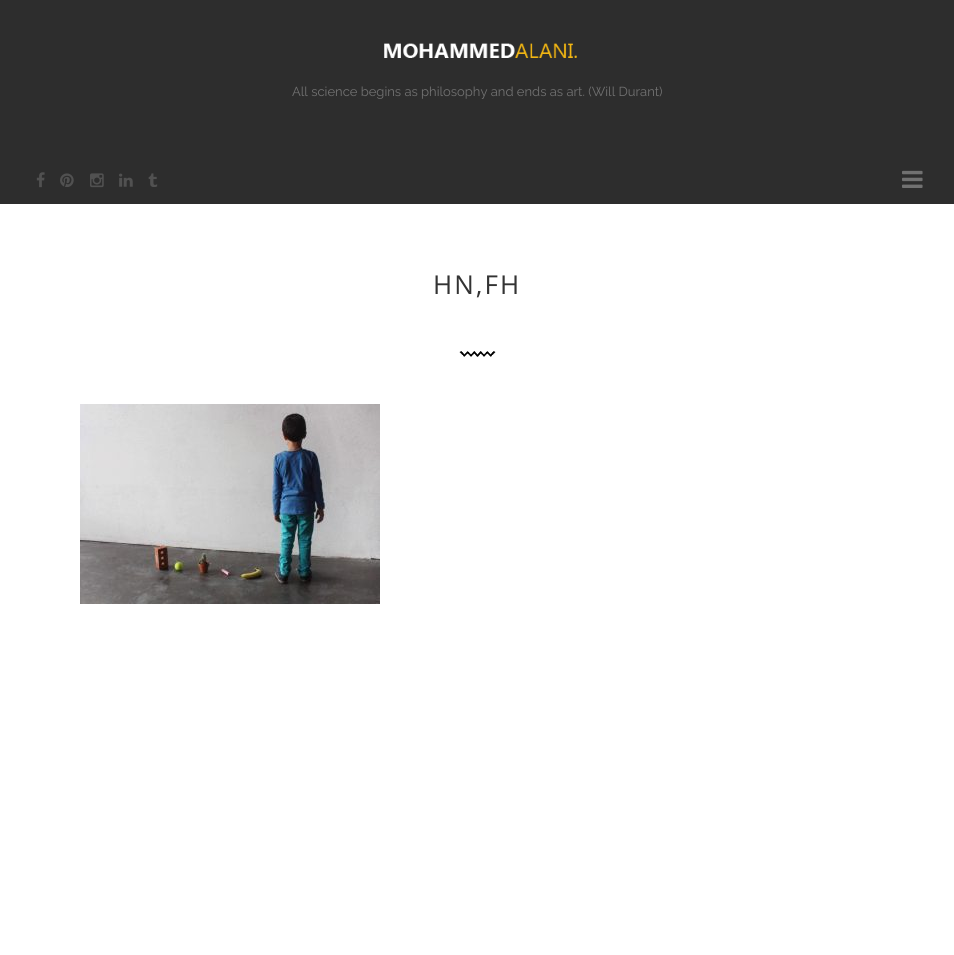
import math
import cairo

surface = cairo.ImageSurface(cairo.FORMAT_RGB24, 954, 955)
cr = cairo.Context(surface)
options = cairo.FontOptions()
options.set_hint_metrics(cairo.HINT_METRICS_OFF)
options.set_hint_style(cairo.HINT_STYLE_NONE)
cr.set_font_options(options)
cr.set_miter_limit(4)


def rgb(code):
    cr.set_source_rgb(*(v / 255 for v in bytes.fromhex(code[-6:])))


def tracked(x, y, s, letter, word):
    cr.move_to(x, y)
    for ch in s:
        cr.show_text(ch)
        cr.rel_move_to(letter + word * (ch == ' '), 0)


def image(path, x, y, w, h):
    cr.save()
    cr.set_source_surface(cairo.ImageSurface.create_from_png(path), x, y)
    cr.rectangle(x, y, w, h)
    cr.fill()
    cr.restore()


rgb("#ffffff")
cr.paint()
rgb("#2d2d2d")
cr.rectangle(0, 0, 954, 204)
cr.fill()
image("img/1.png", 384, 43, 193, 15)
image("img/2.png", 36, 172, 9, 16)
image("img/3.png", 60, 173, 14, 14)
image("img/4.png", 90, 173, 14, 15)
image("img/5.png", 119, 173, 14, 14)
image("img/6.png", 148, 173, 10, 14)
image("img/7.png", 902, 170, 21, 18)
image("img/8.png", 459, 351, 37, 6)
image("img/9.png", 80, 404, 300, 200)
cr.select_font_face("Raleway Thin")
cr.set_font_size(13)
rgb("#717171")
cr.move_to(292, 96)
cr.show_text("All science begins as philosophy and ends as art. (Will Durant)")
cr.select_font_face("Open Sans")
cr.set_font_size(26)
rgb("#333333")
tracked(433, 294, "HN,FH", 2, 0)
surface.write_to_png("page.png")
